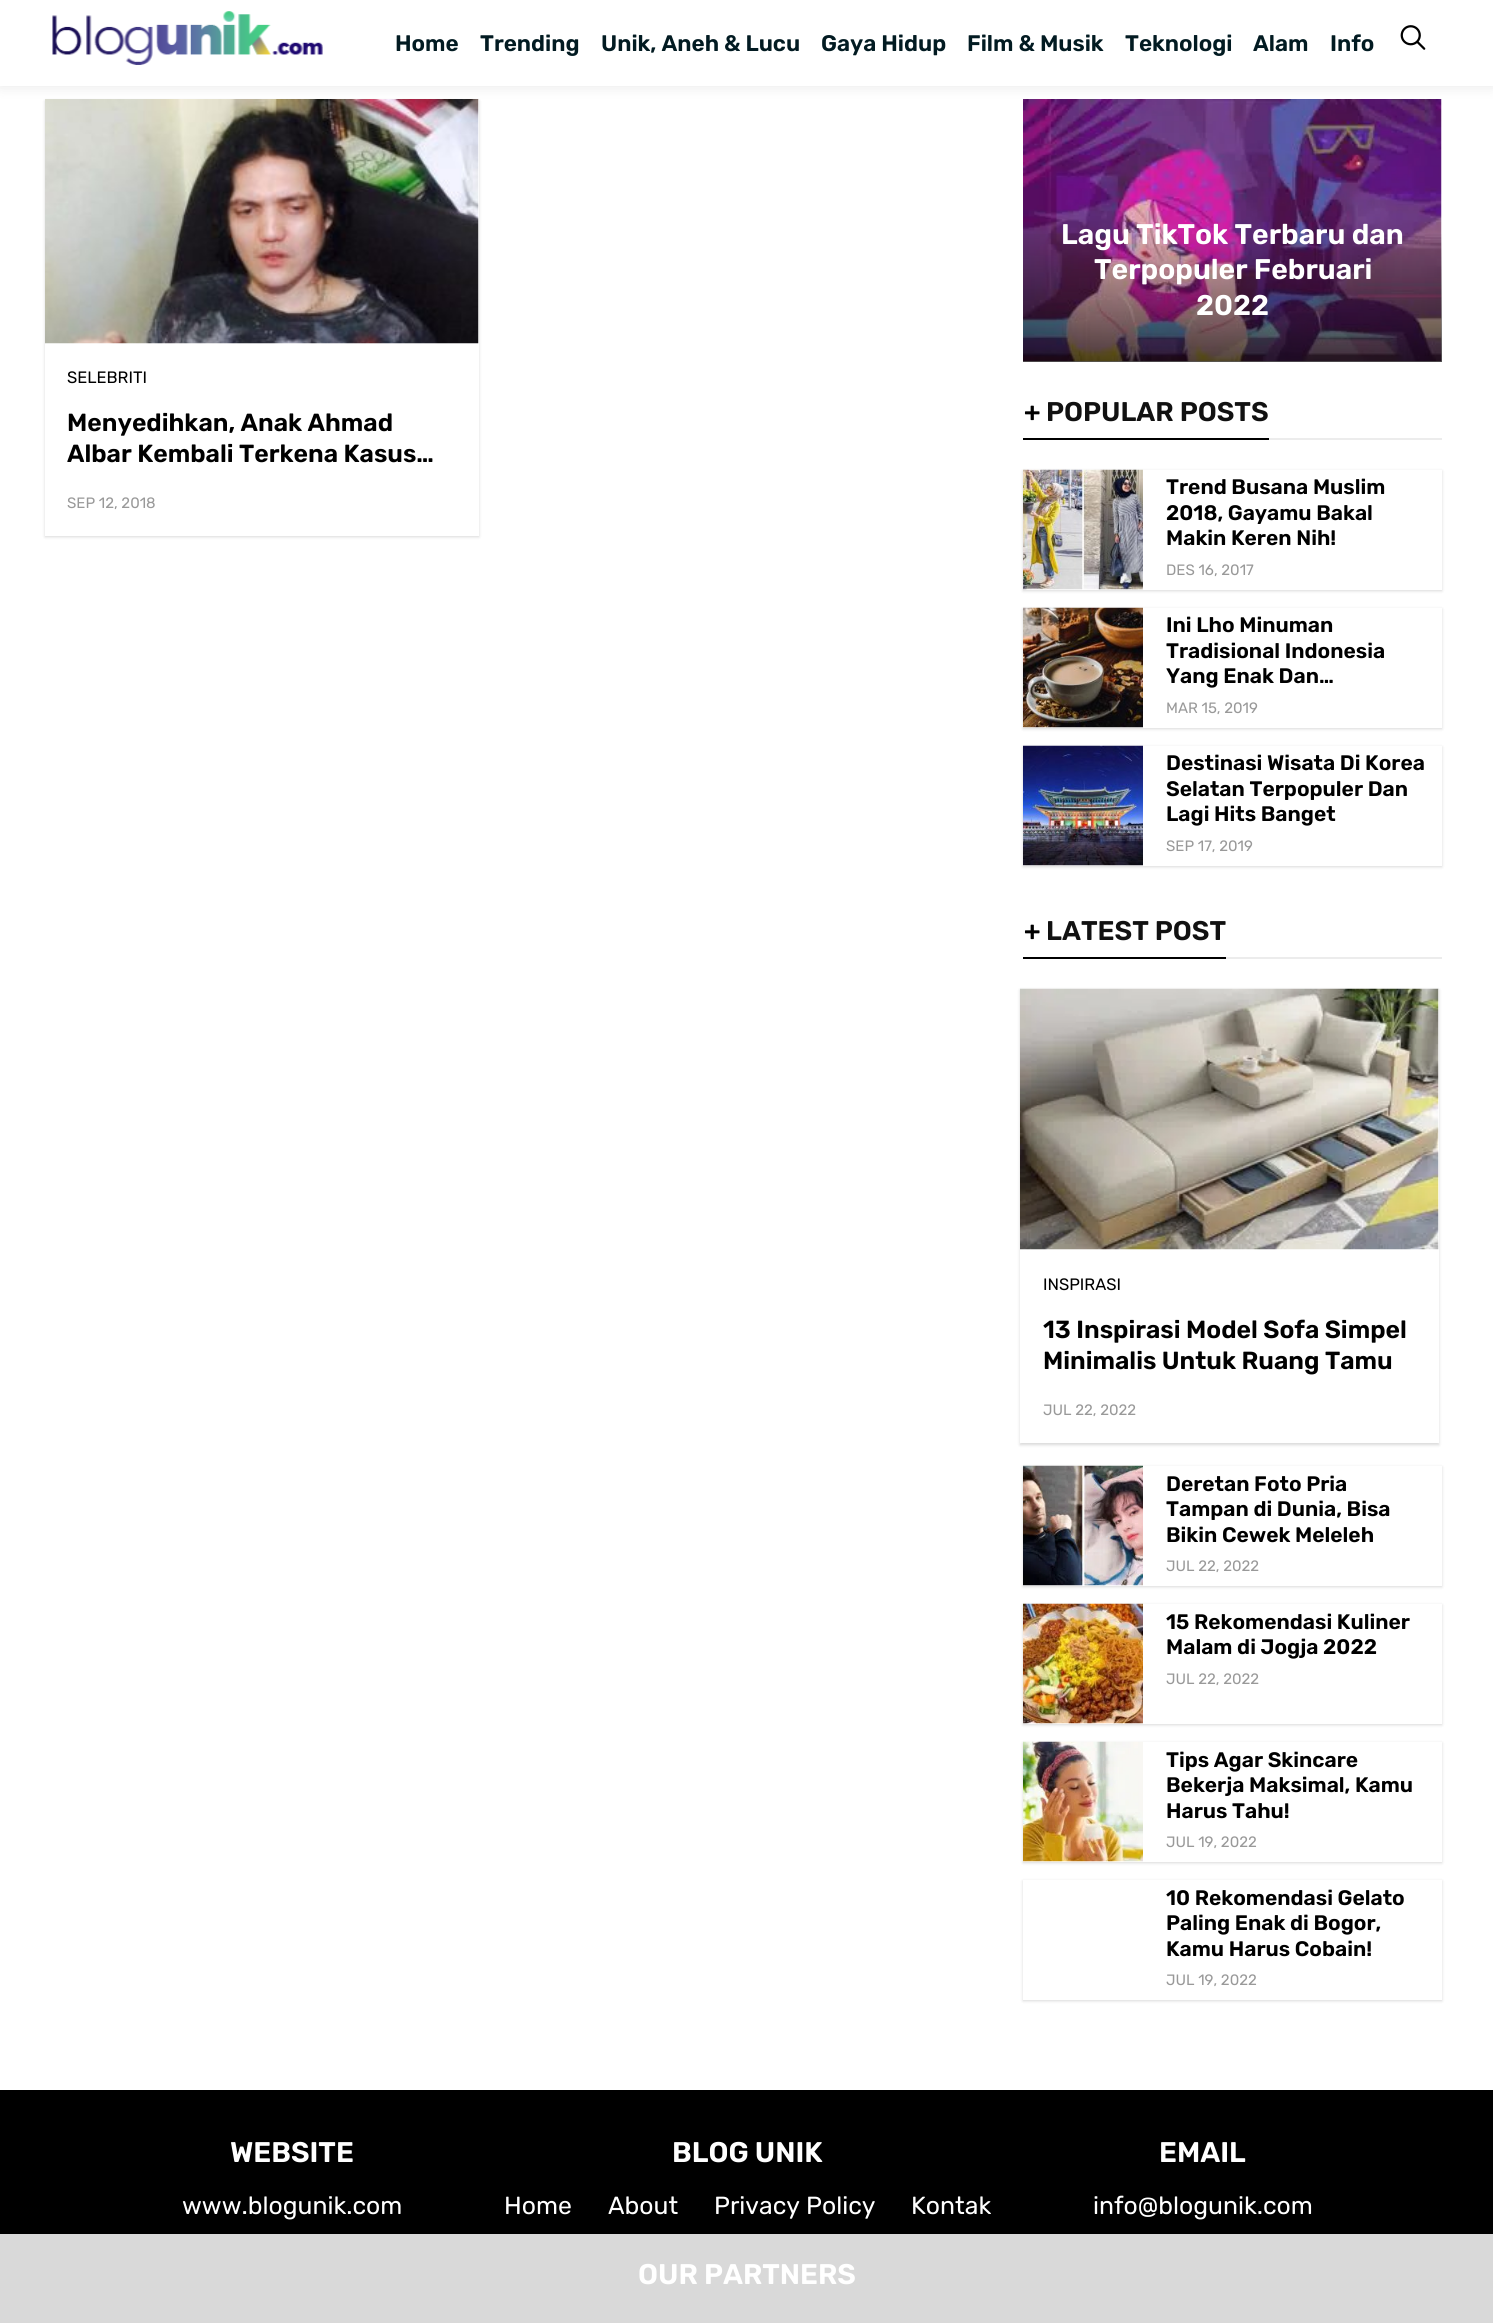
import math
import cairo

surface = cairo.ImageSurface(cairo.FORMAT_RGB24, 1493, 2323)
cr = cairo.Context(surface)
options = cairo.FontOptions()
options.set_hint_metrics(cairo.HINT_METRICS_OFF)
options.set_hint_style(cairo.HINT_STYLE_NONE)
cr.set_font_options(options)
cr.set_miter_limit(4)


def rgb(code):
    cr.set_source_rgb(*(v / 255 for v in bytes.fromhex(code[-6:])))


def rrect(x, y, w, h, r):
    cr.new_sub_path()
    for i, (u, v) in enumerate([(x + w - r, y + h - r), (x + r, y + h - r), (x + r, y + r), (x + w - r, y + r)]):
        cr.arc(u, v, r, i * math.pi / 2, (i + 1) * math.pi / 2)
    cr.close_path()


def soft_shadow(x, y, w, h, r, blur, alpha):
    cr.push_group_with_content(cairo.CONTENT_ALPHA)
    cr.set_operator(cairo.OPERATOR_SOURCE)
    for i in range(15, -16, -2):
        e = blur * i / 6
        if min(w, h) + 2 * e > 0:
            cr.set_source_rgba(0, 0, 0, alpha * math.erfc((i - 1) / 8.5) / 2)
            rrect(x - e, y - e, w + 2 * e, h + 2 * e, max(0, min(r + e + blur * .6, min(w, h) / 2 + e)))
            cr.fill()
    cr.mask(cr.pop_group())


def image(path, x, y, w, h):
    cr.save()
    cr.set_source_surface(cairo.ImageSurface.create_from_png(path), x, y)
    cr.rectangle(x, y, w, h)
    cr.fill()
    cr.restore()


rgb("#ffffff")
cr.paint()
rgb("#000000")
soft_shadow(45, 101, 434, 436, 0, 1.5, 0.15)
rgb("#ffffff")
cr.rectangle(45, 99, 434, 437)
cr.fill()
image("img/3.png", 45, 99, 434, 245)
image("img/4.png", 1023, 99, 419, 263)
rgb("#000000")
soft_shadow(0, 0, 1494, 86, 0, 7, 0.1)
rgb("#ffffff")
cr.rectangle(0, 0, 1493, 86)
cr.fill()
image("img/1.png", 52, 11, 271, 54)
image("img/2.png", 1400, 25, 26, 25)
gradient = cairo.LinearGradient(1232, 230, 1232, 362)
gradient.add_color_stop_rgba(0, 0, 0, 0, 0)
gradient.add_color_stop_rgba(1, 0, 0, 0, 0.65)
cr.set_source(gradient)
cr.rectangle(1023, 234, 419, 128)
cr.fill()
rgb("#000000")
cr.rectangle(1023, 438, 246, 2)
cr.fill()
rgb("#ececec")
cr.rectangle(1269, 438, 173, 2)
cr.fill()
rgb("#000000")
soft_shadow(1023, 471, 419, 120, 0, 1.5, 0.15)
rgb("#ffffff")
cr.rectangle(1023, 470, 419, 120)
cr.fill()
image("img/5.png", 1023, 469, 120, 121)
rgb("#000000")
soft_shadow(1023, 609, 419, 120, 0, 1.5, 0.15)
rgb("#ffffff")
cr.rectangle(1023, 608, 419, 120)
cr.fill()
image("img/6.png", 1023, 607, 120, 121)
rgb("#000000")
soft_shadow(1023, 747, 419, 120, 0, 1.5, 0.15)
rgb("#ffffff")
cr.rectangle(1023, 746, 419, 120)
cr.fill()
image("img/7.png", 1023, 745, 120, 121)
rgb("#000000")
cr.rectangle(1023, 957, 203, 2)
cr.fill()
rgb("#ececec")
cr.rectangle(1226, 957, 216, 2)
cr.fill()
rgb("#000000")
soft_shadow(1020, 990, 419, 455, 0, 1.5, 0.15)
rgb("#ffffff")
cr.rectangle(1020, 989, 419, 454)
cr.fill()
image("img/8.png", 1020, 988, 419, 262)
rgb("#000000")
soft_shadow(1023, 1467, 419, 120, 0, 1.5, 0.15)
rgb("#ffffff")
cr.rectangle(1023, 1466, 419, 120)
cr.fill()
image("img/9.png", 1023, 1465, 120, 121)
rgb("#000000")
soft_shadow(1023, 1605, 419, 120, 0, 1.5, 0.15)
rgb("#ffffff")
cr.rectangle(1023, 1604, 419, 120)
cr.fill()
image("img/10.png", 1023, 1603, 120, 121)
rgb("#000000")
soft_shadow(1023, 1743, 419, 120, 0, 1.5, 0.15)
rgb("#ffffff")
cr.rectangle(1023, 1742, 419, 120)
cr.fill()
image("img/11.png", 1023, 1741, 120, 121)
rgb("#000000")
soft_shadow(1023, 1881, 419, 120, 0, 1.5, 0.15)
for x, y, w, h, color in [
    (1023, 1880, 419, 120, "#ffffff"),
    (0, 2090, 1493, 144, "#000000"),
    (0, 2234, 1493, 89, "#d9d9d9"),
]:
    rgb(color)
    cr.rectangle(x, y, w, h)
    cr.fill()
cr.select_font_face("Rubik SemiBold")
cr.set_font_size(22.5)
rgb("#021b22")
for x, y, s in [
    (395, 51, "Home"),
    (480, 51, "Trending"),
    (601, 51, "Unik, Aneh & Lucu"),
    (821, 51, "Gaya Hidup"),
    (967, 51, "Film & Musik"),
    (1125, 51, "Teknologi"),
    (1253, 51, "Alam"),
    (1330, 51, "Info"),
]:
    cr.move_to(x, y)
    cr.show_text(s)
cr.select_font_face("Rubik")
cr.set_font_size(16.5)
rgb("#000000")
cr.move_to(67, 383)
cr.show_text("SELEBRITI")
cr.select_font_face("Rubik SemiBold")
cr.set_font_size(24.75)
cr.move_to(67, 431)
cr.show_text("Menyedihkan, Anak Ahmad")
cr.move_to(67, 462)
cr.show_text("Albar Kembali Terkena Kasus…")
cr.select_font_face("Rubik")
cr.set_font_size(15)
rgb("#999999")
cr.move_to(67, 508)
cr.show_text("SEP 12, 2018")
cr.select_font_face("Rubik SemiBold")
cr.set_font_size(28.4)
rgb("#ffffff")
for x, y, s in [
    (1061, 244, "Lagu TikTok Terbaru dan"),
    (1094, 279, "Terpopuler Februari"),
    (1196, 315, "2022"),
]:
    cr.move_to(x, y)
    cr.show_text(s)
cr.set_font_size(27)
rgb("#000000")
cr.move_to(1024, 421)
cr.show_text("+")
rgb("#111111")
cr.move_to(1046, 421)
cr.show_text("POPULAR POSTS")
cr.set_font_size(21)
rgb("#000000")
for x, y, s in [
    (1166, 494, "Trend Busana Muslim"),
    (1166, 520, "2018, Gayamu Bakal"),
    (1166, 545, "Makin Keren Nih!"),
]:
    cr.move_to(x, y)
    cr.show_text(s)
cr.select_font_face("Rubik")
cr.set_font_size(15)
rgb("#999999")
cr.move_to(1166, 575)
cr.show_text("DES 16, 2017")
cr.select_font_face("Rubik SemiBold")
cr.set_font_size(21)
rgb("#000000")
for x, y, s in [
    (1166, 632, "Ini Lho Minuman"),
    (1166, 658, "Tradisional Indonesia"),
    (1166, 683, "Yang Enak Dan…"),
]:
    cr.move_to(x, y)
    cr.show_text(s)
cr.select_font_face("Rubik")
cr.set_font_size(15)
rgb("#999999")
cr.move_to(1166, 713)
cr.show_text("MAR 15, 2019")
cr.select_font_face("Rubik SemiBold")
cr.set_font_size(21)
rgb("#000000")
for x, y, s in [
    (1166, 770, "Destinasi Wisata Di Korea"),
    (1166, 796, "Selatan Terpopuler Dan"),
    (1166, 821, "Lagi Hits Banget"),
]:
    cr.move_to(x, y)
    cr.show_text(s)
cr.select_font_face("Rubik")
cr.set_font_size(15)
rgb("#999999")
cr.move_to(1166, 851)
cr.show_text("SEP 17, 2019")
cr.select_font_face("Rubik SemiBold")
cr.set_font_size(27)
rgb("#000000")
cr.move_to(1024, 940)
cr.show_text("+")
rgb("#111111")
cr.move_to(1046, 940)
cr.show_text("LATEST POST")
cr.select_font_face("Rubik")
cr.set_font_size(16.5)
rgb("#000000")
cr.move_to(1043, 1290)
cr.show_text("INSPIRASI")
cr.select_font_face("Rubik SemiBold")
cr.set_font_size(24.75)
cr.move_to(1043, 1338)
cr.show_text("13 Inspirasi Model Sofa Simpel")
cr.move_to(1043, 1369)
cr.show_text("Minimalis Untuk Ruang Tamu")
cr.select_font_face("Rubik")
cr.set_font_size(15)
rgb("#999999")
cr.move_to(1043, 1415)
cr.show_text("JUL 22, 2022")
cr.select_font_face("Rubik SemiBold")
cr.set_font_size(21)
rgb("#000000")
for x, y, s in [
    (1166, 1491, "Deretan Foto Pria"),
    (1166, 1516, "Tampan di Dunia, Bisa"),
    (1166, 1542, "Bikin Cewek Meleleh"),
]:
    cr.move_to(x, y)
    cr.show_text(s)
cr.select_font_face("Rubik")
cr.set_font_size(15)
rgb("#999999")
cr.move_to(1166, 1571)
cr.show_text("JUL 22, 2022")
cr.select_font_face("Rubik SemiBold")
cr.set_font_size(21)
rgb("#000000")
cr.move_to(1166, 1629)
cr.show_text("15 Rekomendasi Kuliner")
cr.move_to(1166, 1654)
cr.show_text("Malam di Jogja 2022")
cr.select_font_face("Rubik")
cr.set_font_size(15)
rgb("#999999")
cr.move_to(1166, 1684)
cr.show_text("JUL 22, 2022")
cr.select_font_face("Rubik SemiBold")
cr.set_font_size(21)
rgb("#000000")
for x, y, s in [
    (1166, 1767, "Tips Agar Skincare"),
    (1166, 1792, "Bekerja Maksimal, Kamu"),
    (1166, 1818, "Harus Tahu!"),
]:
    cr.move_to(x, y)
    cr.show_text(s)
cr.select_font_face("Rubik")
cr.set_font_size(15)
rgb("#999999")
cr.move_to(1166, 1847)
cr.show_text("JUL 19, 2022")
cr.select_font_face("Rubik SemiBold")
cr.set_font_size(21)
rgb("#000000")
for x, y, s in [
    (1166, 1905, "10 Rekomendasi Gelato"),
    (1166, 1930, "Paling Enak di Bogor,"),
    (1166, 1956, "Kamu Harus Cobain!"),
]:
    cr.move_to(x, y)
    cr.show_text(s)
cr.select_font_face("Rubik")
cr.set_font_size(15)
rgb("#999999")
cr.move_to(1166, 1985)
cr.show_text("JUL 19, 2022")
cr.select_font_face("Rubik SemiBold")
cr.set_font_size(28.4)
rgb("#ffffff")
cr.move_to(230, 2162)
cr.show_text("WEBSITE")
cr.select_font_face("Rubik")
cr.set_font_size(24.75)
cr.move_to(182, 2214)
cr.show_text("www.blogunik.com")
cr.select_font_face("Rubik SemiBold")
cr.set_font_size(28.4)
cr.move_to(672, 2162)
cr.show_text("BLOG UNIK")
cr.select_font_face("Rubik")
cr.set_font_size(24.75)
for x, y, s in [
    (504, 2214, "Home"),
    (608, 2214, "About"),
    (714, 2214, "Privacy Policy"),
    (911, 2214, "Kontak"),
]:
    cr.move_to(x, y)
    cr.show_text(s)
cr.select_font_face("Rubik SemiBold")
cr.set_font_size(28.4)
cr.move_to(1159, 2162)
cr.show_text("EMAIL")
cr.select_font_face("Rubik")
cr.set_font_size(24.75)
cr.move_to(1093, 2214)
cr.show_text("info@blogunik.com")
cr.select_font_face("Rubik SemiBold")
cr.set_font_size(28.4)
cr.move_to(638, 2284)
cr.show_text("OUR PARTNERS")
surface.write_to_png("page.png")
